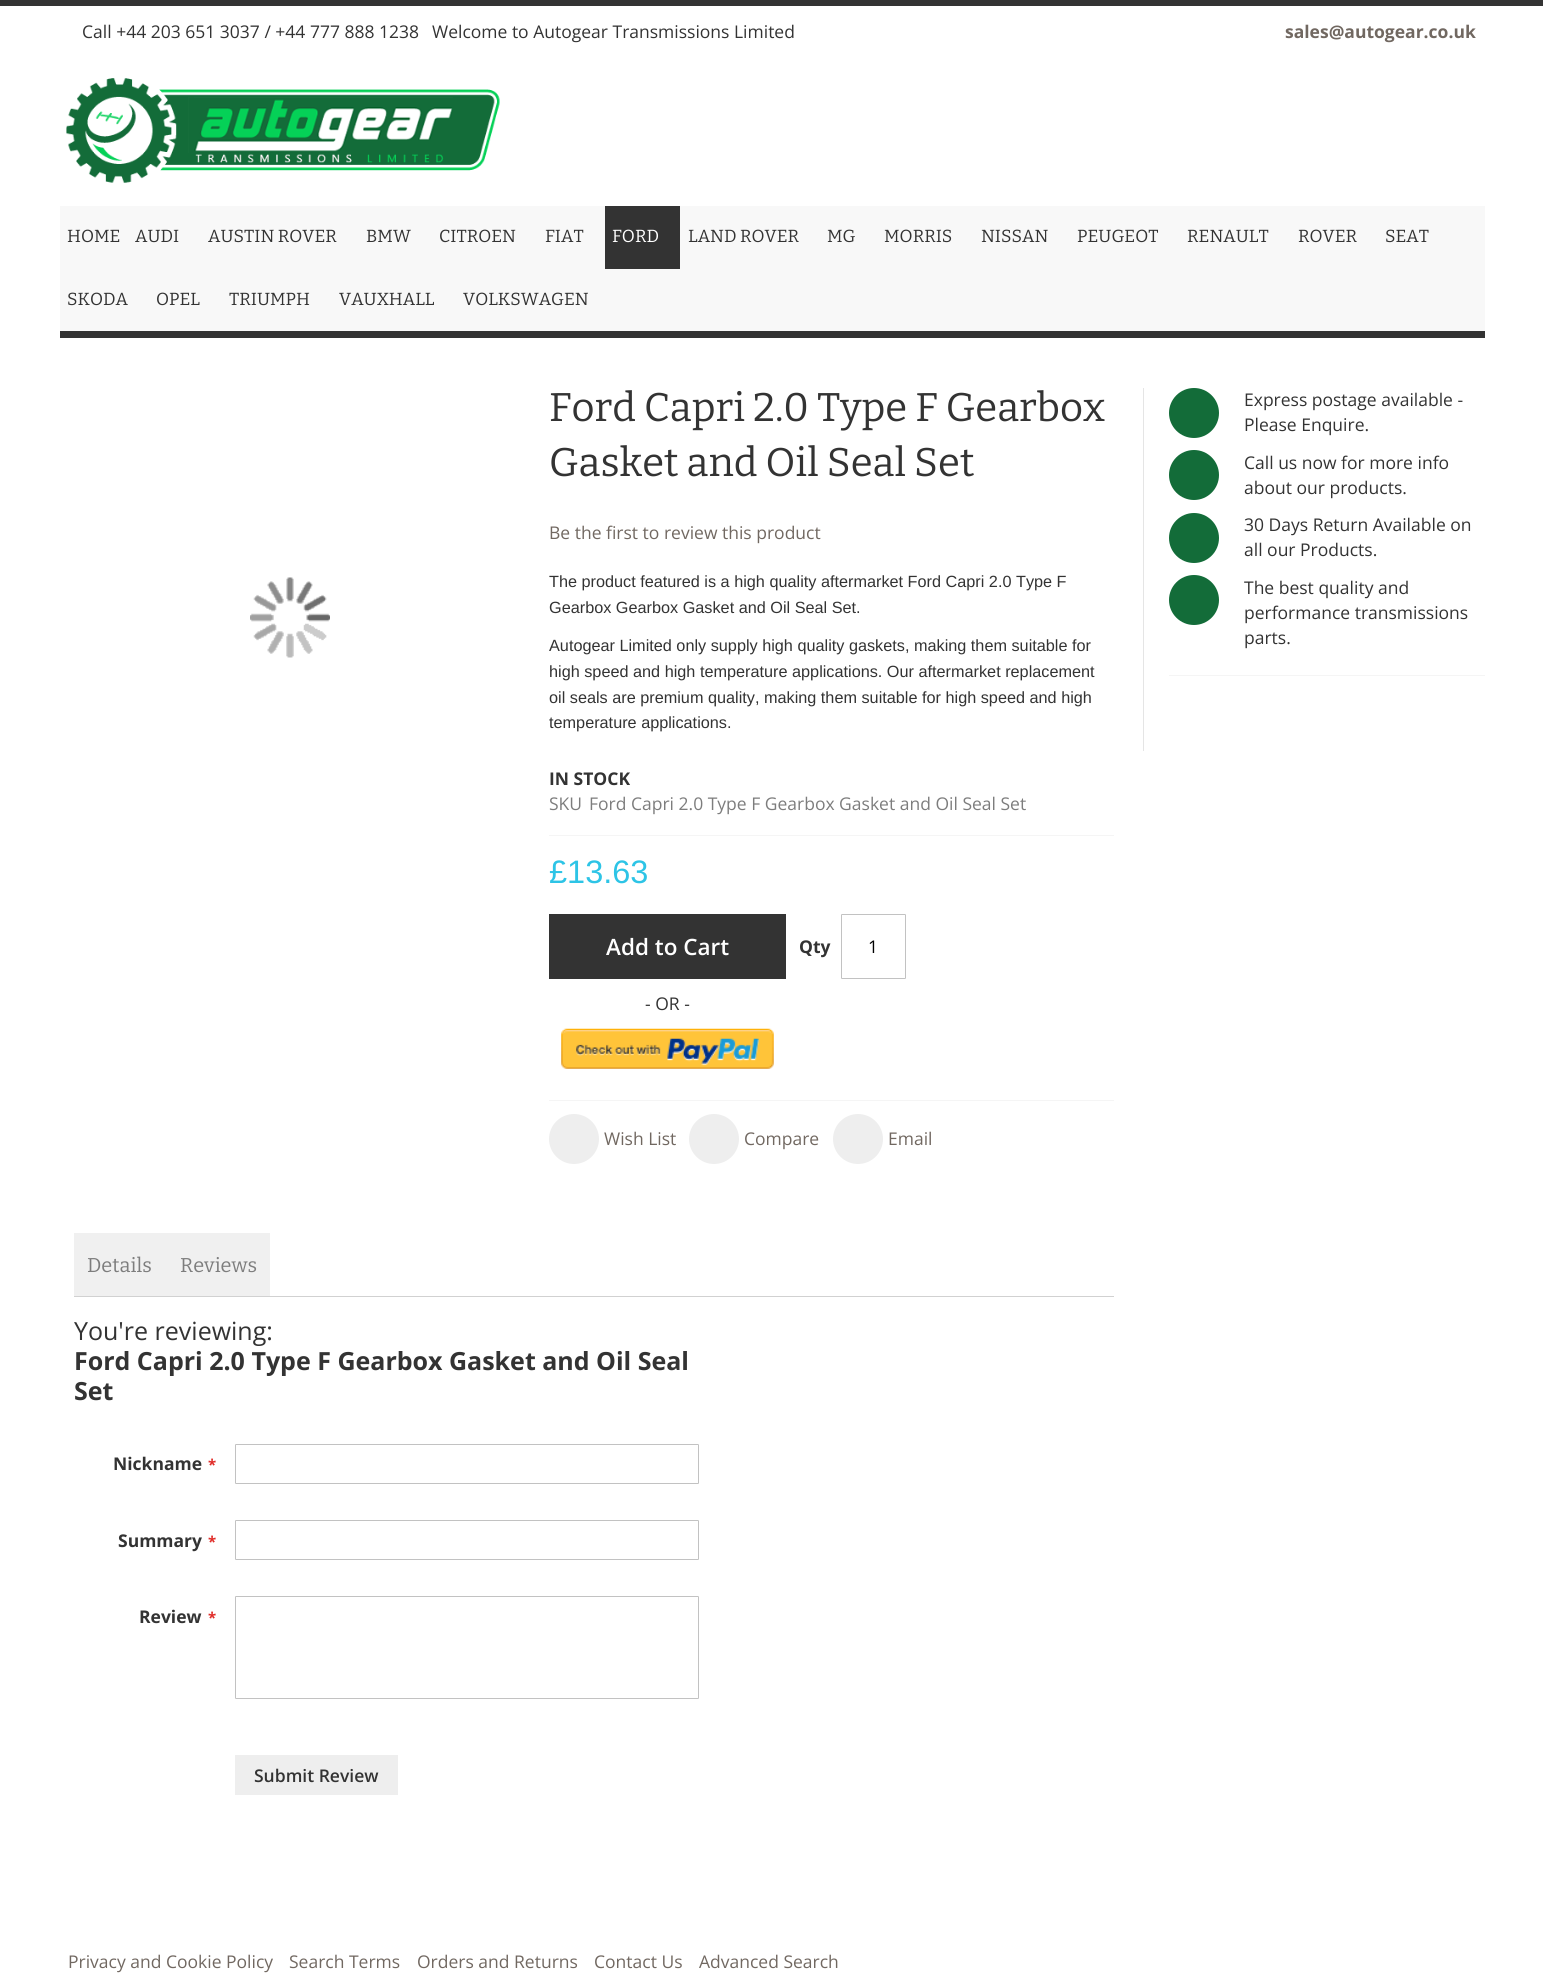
import math
import cairo

surface = cairo.ImageSurface(cairo.FORMAT_RGB24, 1543, 1981)
cr = cairo.Context(surface)
options = cairo.FontOptions()
options.set_hint_metrics(cairo.HINT_METRICS_OFF)
options.set_hint_style(cairo.HINT_STYLE_NONE)
cr.set_font_options(options)
cr.set_miter_limit(4)


def rgb(code):
    cr.set_source_rgb(*(v / 255 for v in bytes.fromhex(code[-6:])))


def rrect(x, y, w, h, r):
    cr.new_sub_path()
    for i, (u, v) in enumerate([(x + w - r, y + h - r), (x + r, y + h - r), (x + r, y + r), (x + w - r, y + r)]):
        cr.arc(u, v, r, i * math.pi / 2, (i + 1) * math.pi / 2)
    cr.close_path()


def image(path, x, y, w, h):
    cr.save()
    cr.set_source_surface(cairo.ImageSurface.create_from_png(path), x, y)
    cr.rectangle(x, y, w, h)
    cr.fill()
    cr.restore()


rgb("#ffffff")
cr.paint()
rgb("#333333")
cr.rectangle(0, 0, 1543, 6)
cr.fill()
image("img/1.png", 66, 78, 434, 105)
for x, y, w, h, color in [
    (60, 206, 1425, 125, "#f8f8f8"),
    (605, 206, 75, 63, "#333333"),
    (60, 331, 1425, 7, "#333333"),
]:
    rgb(color)
    cr.rectangle(x, y, w, h)
    cr.fill()
image("img/2.png", 250, 577, 80, 81)
for x, y, w, h, color in [
    (549, 835, 565, 1, "#f5f5f5"),
    (549, 1100, 565, 1, "#f5f5f5"),
    (549, 914, 237, 65, "#333333"),
]:
    rgb(color)
    cr.rectangle(x, y, w, h)
    cr.fill()
image("img/3.png", 561, 1028, 213, 41)
rrect(841.5, 914.5, 64, 64, 0.5)
rgb("#c2c2c2")
cr.set_line_width(1)
cr.stroke()
rgb("#eeeeee")
cr.arc(574, 1139, 25, 0, 2 * math.pi)
cr.fill()
cr.arc(714, 1139, 25, 0, 2 * math.pi)
cr.fill()
cr.arc(858, 1139, 25, 0, 2 * math.pi)
cr.fill()
rgb("#e5e5e5")
cr.rectangle(1143, 388, 1, 363)
cr.fill()
rgb("#136c39")
cr.arc(1194, 413, 25, 0, 2 * math.pi)
cr.fill()
cr.arc(1194, 475, 25, 0, 2 * math.pi)
cr.fill()
cr.arc(1194, 538, 25, 0, 2 * math.pi)
cr.fill()
cr.arc(1194, 600, 25, 0, 2 * math.pi)
cr.fill()
for x, y, w, h, color in [
    (1169, 675, 316, 1, "#f5f5f5"),
    (74, 1233, 196, 63, "#f0f0f0"),
    (74, 1296, 1040, 1, "#d1d1d1"),
]:
    rgb(color)
    cr.rectangle(x, y, w, h)
    cr.fill()
rrect(235.5, 1444.5, 463, 39, 0.5)
rgb("#c2c2c2")
cr.stroke()
rrect(235.5, 1520.5, 463, 39, 0.5)
cr.stroke()
rrect(235.5, 1596.5, 463, 102, 0.5)
cr.stroke()
rgb("#eeeeee")
cr.rectangle(235, 1755, 163, 40)
cr.fill()
cr.select_font_face("Open Sans")
cr.set_font_size(17.5)
rgb("#333333")
cr.move_to(82, 38)
cr.show_text("Call +44 203 651 3037 / +44 777 888 1238")
cr.move_to(432, 38)
cr.show_text("Welcome to Autogear Transmissions Limited")
cr.select_font_face("Open Sans", cairo.FONT_SLANT_NORMAL, cairo.FONT_WEIGHT_BOLD)
rgb("#716861")
cr.move_to(1285, 38)
cr.show_text("sales@autogear.co.uk")
cr.select_font_face("Bitter Thin")
rgb("#333333")
for x, y, s in [
    (67, 242, "HOME"),
    (135, 242, "AUDI"),
    (208, 242, "AUSTIN ROVER"),
    (366, 242, "BMW"),
    (439, 242, "CITROEN"),
    (545, 242, "FIAT"),
]:
    cr.move_to(x, y)
    cr.show_text(s)
rgb("#ffffff")
cr.move_to(612, 242)
cr.show_text("FORD")
rgb("#333333")
for x, y, s in [
    (688, 242, "LAND ROVER"),
    (827, 242, "MG"),
    (884, 242, "MORRIS"),
    (981, 242, "NISSAN"),
    (1077, 242, "PEUGEOT"),
    (1187, 242, "RENAULT"),
    (1298, 242, "ROVER"),
    (1385, 242, "SEAT"),
    (67, 305, "SKODA"),
    (156, 305, "OPEL"),
    (229, 305, "TRIUMPH"),
    (339, 305, "VAUXHALL"),
    (463, 305, "VOLKSWAGEN"),
]:
    cr.move_to(x, y)
    cr.show_text(s)
cr.set_font_size(40)
cr.move_to(549, 421)
cr.show_text("Ford Capri 2.0 Type F Gearbox")
cr.move_to(549, 476)
cr.show_text("Gasket and Oil Seal Set")
cr.select_font_face("Open Sans")
cr.set_font_size(17.5)
rgb("#716861")
cr.move_to(549, 539)
cr.show_text("Be the first to review this product")
cr.select_font_face("Liberation Sans")
cr.set_font_size(16.25)
rgb("#333333")
for x, y, s in [
    (549, 587, "The product featured is a high quality aftermarket Ford Capri 2.0 Type F"),
    (549, 613, "Gearbox Gearbox Gasket and Oil Seal Set."),
    (549, 651, "Autogear Limited only supply high quality gaskets, making them suitable for"),
    (549, 677, "high speed and high temperature applications. Our aftermarket replacement"),
    (549, 703, "oil seals are premium quality, making them suitable for high speed and high"),
    (549, 728, "temperature applications."),
]:
    cr.move_to(x, y)
    cr.show_text(s)
cr.select_font_face("Open Sans", cairo.FONT_SLANT_NORMAL, cairo.FONT_WEIGHT_BOLD)
cr.set_font_size(17.5)
cr.move_to(549, 785)
cr.show_text("IN STOCK")
cr.select_font_face("Open Sans")
rgb("#7d7d7d")
cr.move_to(549, 810)
cr.show_text("SKU")
cr.move_to(589, 810)
cr.show_text("Ford Capri 2.0 Type F Gearbox Gasket and Oil Seal Set")
cr.select_font_face("Liberation Sans")
cr.set_font_size(32.5)
rgb("#2dc4e6")
cr.move_to(549, 883)
cr.show_text("£13.63")
cr.select_font_face("Open Sans SemiBold")
cr.set_font_size(22.5)
rgb("#ffffff")
cr.move_to(606, 955)
cr.show_text("Add to Cart")
cr.select_font_face("Open Sans")
cr.set_font_size(17.5)
rgb("#333333")
cr.move_to(645, 1010)
cr.show_text("- OR -")
cr.select_font_face("Open Sans", cairo.FONT_SLANT_NORMAL, cairo.FONT_WEIGHT_BOLD)
cr.move_to(799, 953)
cr.show_text("Qty")
cr.select_font_face("Open Sans")
rgb("#000000")
cr.move_to(868, 953)
cr.show_text("1")
rgb("#716861")
for x, y, s in [
    (604, 1145, "Wish List"),
    (744, 1145, "Compare"),
    (888, 1145, "Email"),
]:
    cr.move_to(x, y)
    cr.show_text(s)
rgb("#333333")
for x, y, s in [
    (1244, 406, "Express postage available -"),
    (1244, 431, "Please Enquire."),
    (1244, 469, "Call us now for more info"),
    (1244, 494, "about our products."),
    (1244, 531, "30 Days Return Available on"),
    (1244, 556, "all our Products."),
    (1244, 594, "The best quality and"),
    (1244, 619, "performance transmissions"),
    (1244, 644, "parts."),
]:
    cr.move_to(x, y)
    cr.show_text(s)
cr.select_font_face("Bitter Thin")
cr.set_font_size(20)
rgb("#7d7d7d")
cr.move_to(87, 1272)
cr.show_text("Details")
cr.move_to(180, 1272)
cr.show_text("Reviews")
cr.select_font_face("Open Sans")
cr.set_font_size(25)
rgb("#333333")
cr.move_to(74, 1340)
cr.show_text("You're reviewing:")
cr.select_font_face("Open Sans", cairo.FONT_SLANT_NORMAL, cairo.FONT_WEIGHT_BOLD)
cr.move_to(74, 1370)
cr.show_text("Ford Capri 2.0 Type F Gearbox Gasket and Oil Seal")
cr.move_to(74, 1400)
cr.show_text("Set")
cr.set_font_size(17.5)
cr.move_to(113, 1470)
cr.show_text("Nickname")
cr.set_font_size(15)
rgb("#e02b27")
cr.move_to(208, 1470)
cr.show_text("*")
cr.set_font_size(17.5)
rgb("#333333")
cr.move_to(118, 1547)
cr.show_text("Summary")
cr.set_font_size(15)
rgb("#e02b27")
cr.move_to(208, 1547)
cr.show_text("*")
cr.set_font_size(17.5)
rgb("#333333")
cr.move_to(139, 1623)
cr.show_text("Review")
cr.set_font_size(15)
rgb("#e02b27")
cr.move_to(208, 1623)
cr.show_text("*")
cr.select_font_face("Open Sans SemiBold")
cr.set_font_size(17.5)
rgb("#333333")
cr.move_to(254, 1782)
cr.show_text("Submit Review")
cr.select_font_face("Open Sans")
rgb("#716861")
for x, y, s in [
    (68, 1968, "Privacy and Cookie Policy"),
    (289, 1968, "Search Terms"),
    (417, 1968, "Orders and Returns"),
    (594, 1968, "Contact Us"),
    (699, 1968, "Advanced Search"),
]:
    cr.move_to(x, y)
    cr.show_text(s)
surface.write_to_png("page.png")
